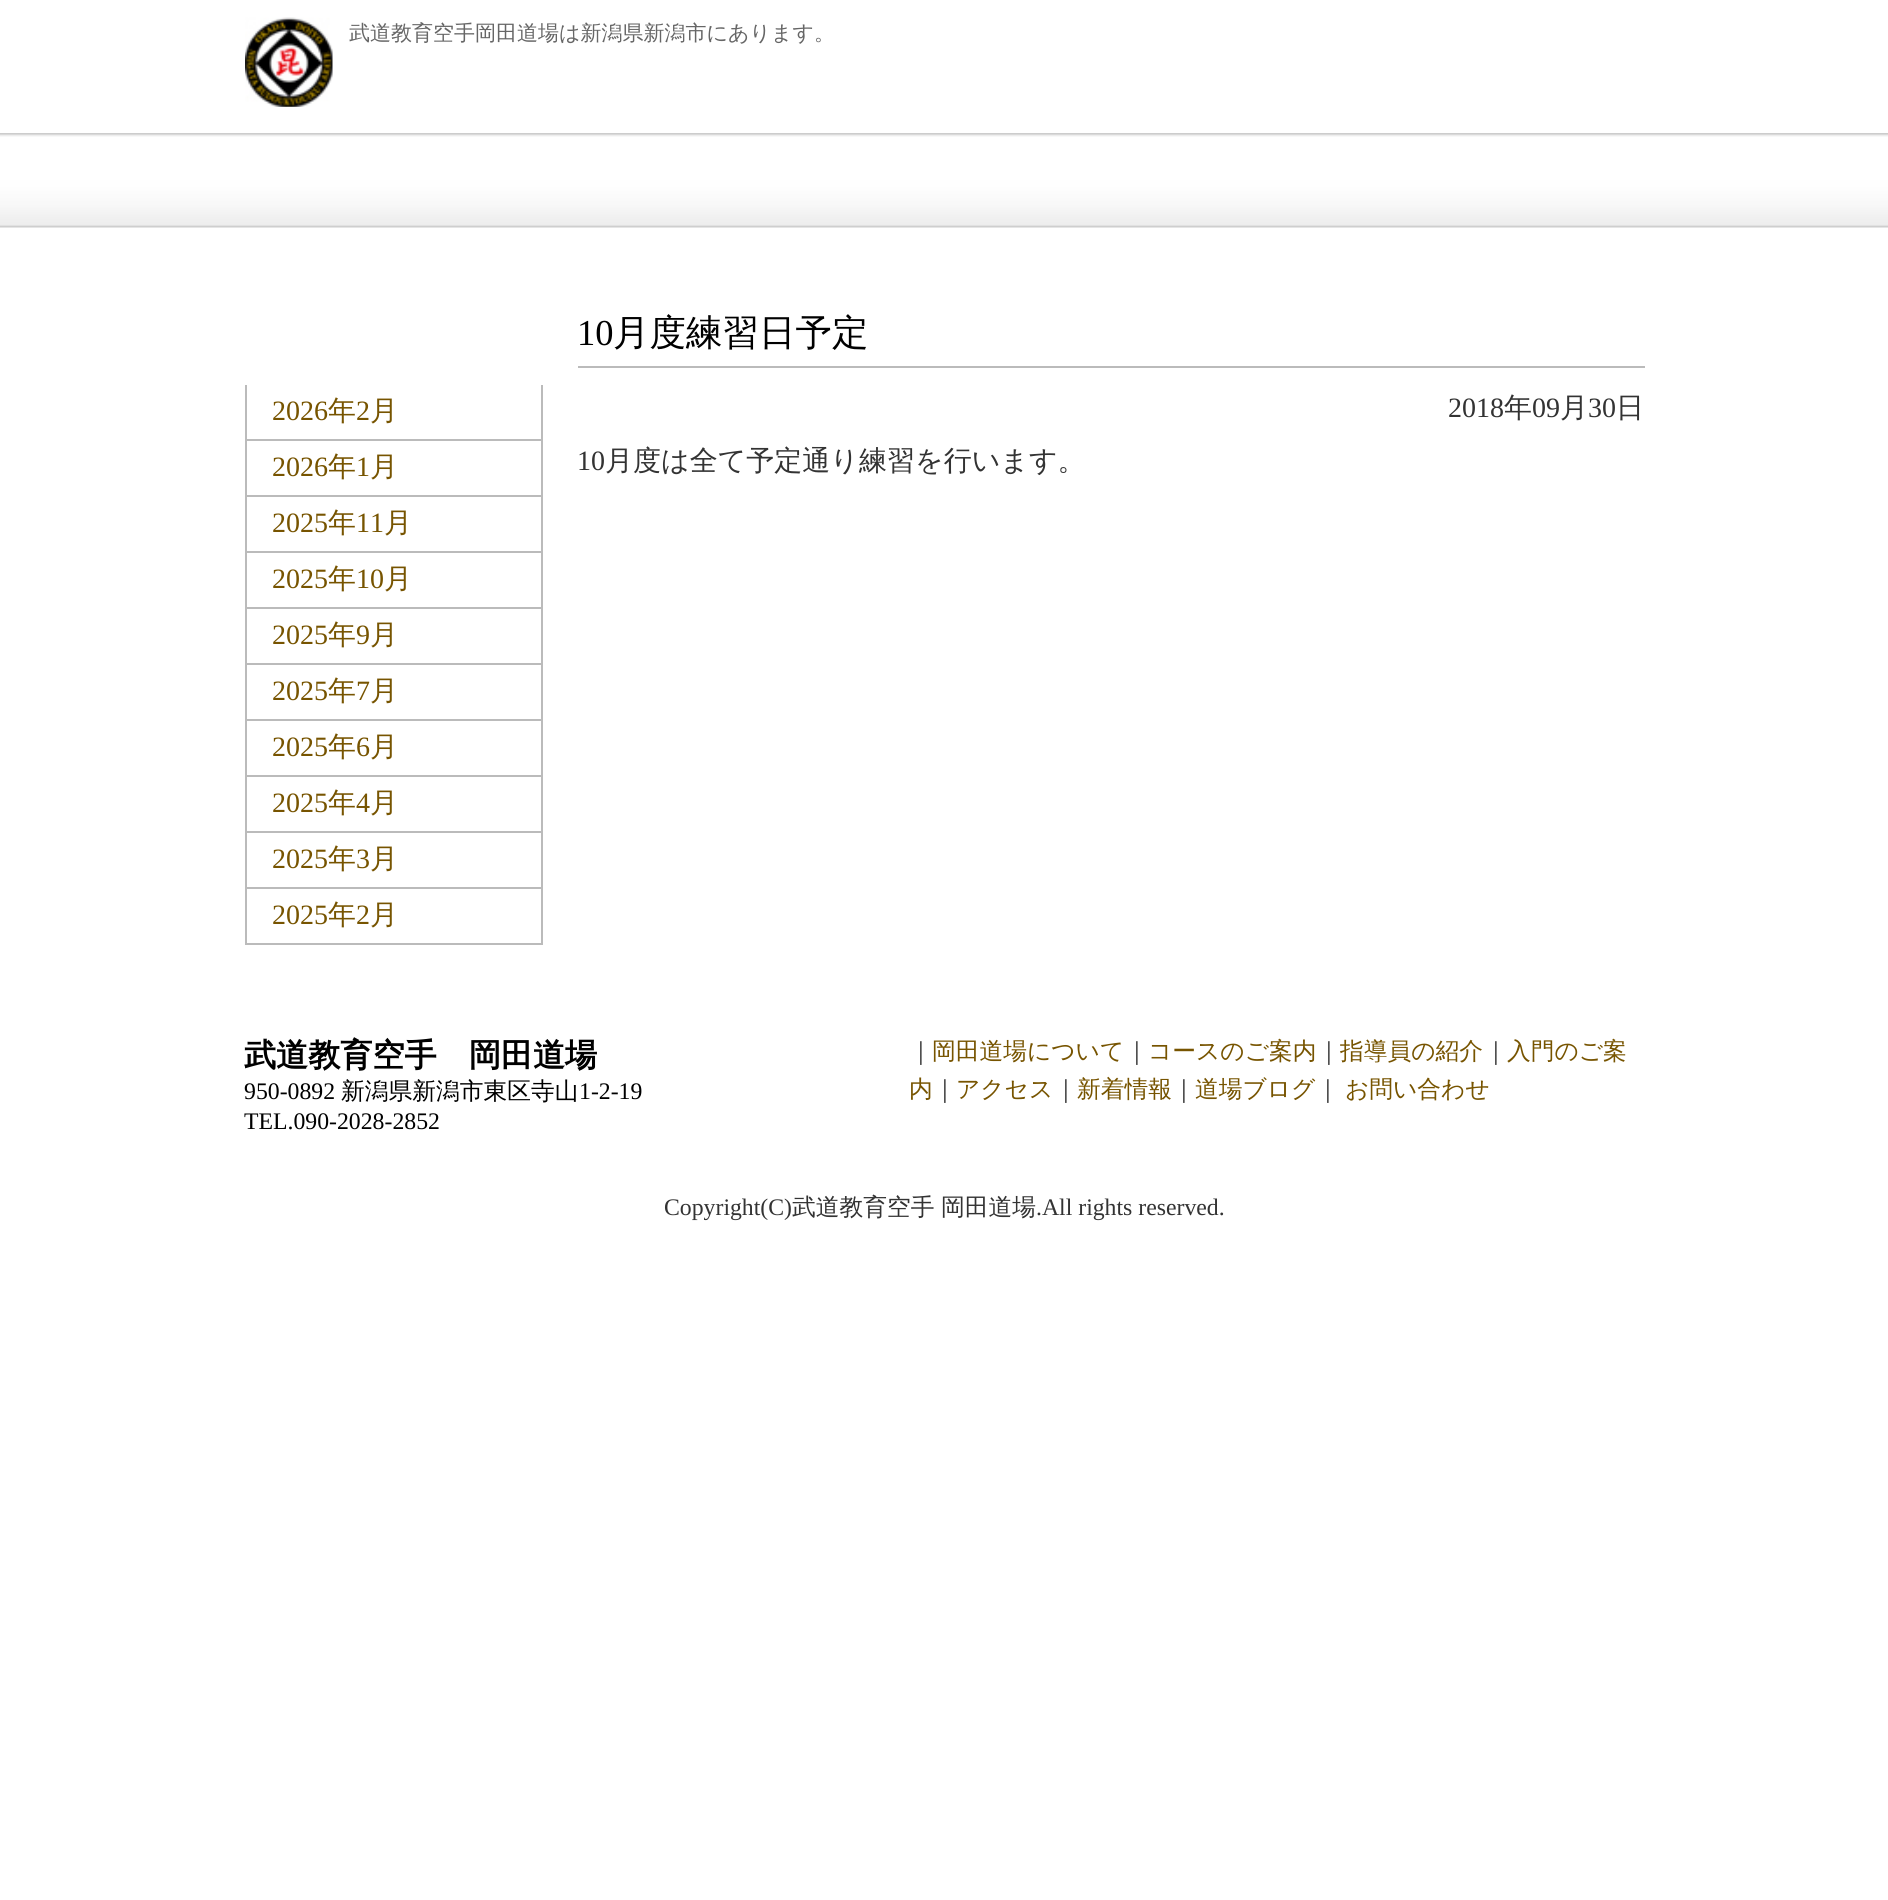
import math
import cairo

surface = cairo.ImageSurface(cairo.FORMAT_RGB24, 1888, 1900)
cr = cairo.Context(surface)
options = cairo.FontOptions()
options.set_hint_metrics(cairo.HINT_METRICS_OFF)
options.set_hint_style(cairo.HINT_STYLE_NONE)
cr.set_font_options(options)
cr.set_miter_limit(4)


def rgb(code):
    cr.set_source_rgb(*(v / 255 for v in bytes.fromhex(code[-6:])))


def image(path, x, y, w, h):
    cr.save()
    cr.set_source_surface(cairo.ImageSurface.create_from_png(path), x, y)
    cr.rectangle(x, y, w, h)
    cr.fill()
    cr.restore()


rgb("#ffffff")
cr.paint()
image("img/1.png", 245, 17, 88, 90)
image("img/2.png", 0, 133, 1888, 95)
for x, y, w, h, color in [
    (541, 385, 2, 560, "#bbbbbb"),
    (245, 439, 298, 2, "#bbbbbb"),
    (245, 385, 2, 56, "#bbbbbb"),
    (245, 495, 298, 2, "#bbbbbb"),
    (245, 441, 2, 56, "#bbbbbb"),
    (245, 551, 298, 2, "#bbbbbb"),
    (245, 497, 2, 56, "#bbbbbb"),
    (245, 607, 298, 2, "#bbbbbb"),
    (245, 553, 2, 56, "#bbbbbb"),
    (245, 663, 298, 2, "#bbbbbb"),
    (245, 609, 2, 56, "#bbbbbb"),
    (245, 719, 298, 2, "#bbbbbb"),
    (245, 665, 2, 56, "#bbbbbb"),
    (245, 775, 298, 2, "#bbbbbb"),
    (245, 721, 2, 56, "#bbbbbb"),
    (245, 831, 298, 2, "#bbbbbb"),
    (245, 777, 2, 56, "#bbbbbb"),
    (245, 887, 298, 2, "#bbbbbb"),
    (245, 833, 2, 56, "#bbbbbb"),
    (245, 943, 298, 2, "#bbbbbb"),
    (245, 889, 2, 56, "#bbbbbb"),
    (578, 366, 1067, 2, "#bbbbbb"),
]:
    rgb(color)
    cr.rectangle(x, y, w, h)
    cr.fill()
cr.select_font_face("WenQuanYi Zen Hei Medium")
cr.set_font_size(21)
rgb("#666666")
cr.move_to(349, 40)
cr.show_text("武道教育空手岡田道場は新潟県新潟市にあります。")
cr.select_font_face("Liberation Serif")
cr.set_font_size(28)
rgb("#775400")
cr.move_to(272, 420)
cr.show_text("2026")
cr.select_font_face("WenQuanYi Zen Hei Medium")
cr.move_to(328, 420)
cr.show_text("年")
cr.select_font_face("Liberation Serif")
cr.move_to(356, 420)
cr.show_text("2")
cr.select_font_face("WenQuanYi Zen Hei Medium")
cr.move_to(370, 420)
cr.show_text("月")
cr.select_font_face("Liberation Serif")
cr.move_to(272, 476)
cr.show_text("2026")
cr.select_font_face("WenQuanYi Zen Hei Medium")
cr.move_to(328, 476)
cr.show_text("年")
cr.select_font_face("Liberation Serif")
cr.move_to(356, 476)
cr.show_text("1")
cr.select_font_face("WenQuanYi Zen Hei Medium")
cr.move_to(370, 476)
cr.show_text("月")
cr.select_font_face("Liberation Serif")
cr.move_to(272, 532)
cr.show_text("2025")
cr.select_font_face("WenQuanYi Zen Hei Medium")
cr.move_to(328, 532)
cr.show_text("年")
cr.select_font_face("Liberation Serif")
cr.move_to(356, 532)
cr.show_text("11")
cr.select_font_face("WenQuanYi Zen Hei Medium")
cr.move_to(384, 532)
cr.show_text("月")
cr.select_font_face("Liberation Serif")
cr.move_to(272, 588)
cr.show_text("2025")
cr.select_font_face("WenQuanYi Zen Hei Medium")
cr.move_to(328, 588)
cr.show_text("年")
cr.select_font_face("Liberation Serif")
cr.move_to(356, 588)
cr.show_text("10")
cr.select_font_face("WenQuanYi Zen Hei Medium")
cr.move_to(384, 588)
cr.show_text("月")
cr.select_font_face("Liberation Serif")
cr.move_to(272, 644)
cr.show_text("2025")
cr.select_font_face("WenQuanYi Zen Hei Medium")
cr.move_to(328, 644)
cr.show_text("年")
cr.select_font_face("Liberation Serif")
cr.move_to(356, 644)
cr.show_text("9")
cr.select_font_face("WenQuanYi Zen Hei Medium")
cr.move_to(370, 644)
cr.show_text("月")
cr.select_font_face("Liberation Serif")
cr.move_to(272, 700)
cr.show_text("2025")
cr.select_font_face("WenQuanYi Zen Hei Medium")
cr.move_to(328, 700)
cr.show_text("年")
cr.select_font_face("Liberation Serif")
cr.move_to(356, 700)
cr.show_text("7")
cr.select_font_face("WenQuanYi Zen Hei Medium")
cr.move_to(370, 700)
cr.show_text("月")
cr.select_font_face("Liberation Serif")
cr.move_to(272, 756)
cr.show_text("2025")
cr.select_font_face("WenQuanYi Zen Hei Medium")
cr.move_to(328, 756)
cr.show_text("年")
cr.select_font_face("Liberation Serif")
cr.move_to(356, 756)
cr.show_text("6")
cr.select_font_face("WenQuanYi Zen Hei Medium")
cr.move_to(370, 756)
cr.show_text("月")
cr.select_font_face("Liberation Serif")
cr.move_to(272, 812)
cr.show_text("2025")
cr.select_font_face("WenQuanYi Zen Hei Medium")
cr.move_to(328, 812)
cr.show_text("年")
cr.select_font_face("Liberation Serif")
cr.move_to(356, 812)
cr.show_text("4")
cr.select_font_face("WenQuanYi Zen Hei Medium")
cr.move_to(370, 812)
cr.show_text("月")
cr.select_font_face("Liberation Serif")
cr.move_to(272, 868)
cr.show_text("2025")
cr.select_font_face("WenQuanYi Zen Hei Medium")
cr.move_to(328, 868)
cr.show_text("年")
cr.select_font_face("Liberation Serif")
cr.move_to(356, 868)
cr.show_text("3")
cr.select_font_face("WenQuanYi Zen Hei Medium")
cr.move_to(370, 868)
cr.show_text("月")
cr.select_font_face("Liberation Serif")
cr.move_to(272, 924)
cr.show_text("2025")
cr.select_font_face("WenQuanYi Zen Hei Medium")
cr.move_to(328, 924)
cr.show_text("年")
cr.select_font_face("Liberation Serif")
cr.move_to(356, 924)
cr.show_text("2")
cr.select_font_face("WenQuanYi Zen Hei Medium")
cr.move_to(370, 924)
cr.show_text("月")
cr.select_font_face("Liberation Serif")
cr.set_font_size(36.5)
rgb("#000000")
cr.move_to(577, 345)
cr.show_text("10")
cr.select_font_face("WenQuanYi Zen Hei Medium")
cr.move_to(613, 345)
cr.show_text("月度練習日予定")
cr.select_font_face("Liberation Serif")
cr.set_font_size(28)
rgb("#333333")
cr.move_to(1448, 417)
cr.show_text("2018")
cr.select_font_face("WenQuanYi Zen Hei Medium")
cr.move_to(1504, 417)
cr.show_text("年")
cr.select_font_face("Liberation Serif")
cr.move_to(1532, 417)
cr.show_text("09")
cr.select_font_face("WenQuanYi Zen Hei Medium")
cr.move_to(1560, 417)
cr.show_text("月")
cr.select_font_face("Liberation Serif")
cr.move_to(1588, 417)
cr.show_text("30")
cr.select_font_face("WenQuanYi Zen Hei Medium")
cr.move_to(1616, 417)
cr.show_text("日")
cr.select_font_face("Liberation Serif")
cr.move_to(577, 470)
cr.show_text("10")
cr.select_font_face("WenQuanYi Zen Hei Medium")
cr.move_to(605, 470)
cr.show_text("月度は全て予定通り練習を行います。")
cr.select_font_face("WenQuanYi Zen Hei", cairo.FONT_SLANT_NORMAL, cairo.FONT_WEIGHT_BOLD)
cr.set_font_size(32.1)
rgb("#000000")
cr.move_to(244, 1066)
cr.show_text("武道教育空手　岡田道場")
cr.select_font_face("Liberation Serif")
cr.set_font_size(23.75)
cr.move_to(244, 1099)
cr.show_text("950-0892")
cr.select_font_face("WenQuanYi Zen Hei Medium")
cr.move_to(341, 1099)
cr.show_text("新潟県新潟市東区寺山")
cr.select_font_face("Liberation Serif")
cr.move_to(579, 1099)
cr.show_text("1-2-19")
cr.move_to(244, 1129)
cr.show_text("TEL.090-2028-2852")
cr.select_font_face("WenQuanYi Zen Hei Medium")
rgb("#333333")
cr.move_to(909, 1059)
cr.show_text("｜")
rgb("#775400")
cr.move_to(932, 1059)
cr.show_text("岡田道場について")
rgb("#333333")
cr.move_to(1125, 1059)
cr.show_text("｜")
rgb("#775400")
cr.move_to(1148, 1059)
cr.show_text("コースのご案内")
rgb("#333333")
cr.move_to(1317, 1059)
cr.show_text("｜")
rgb("#775400")
cr.move_to(1340, 1059)
cr.show_text("指導員の紹介")
rgb("#333333")
cr.move_to(1484, 1059)
cr.show_text("｜")
rgb("#775400")
cr.move_to(1507, 1059)
cr.show_text("入門のご案")
cr.move_to(909, 1097)
cr.show_text("内")
rgb("#333333")
cr.move_to(933, 1097)
cr.show_text("｜")
rgb("#775400")
cr.move_to(956, 1097)
cr.show_text("アクセス")
rgb("#333333")
cr.move_to(1054, 1097)
cr.show_text("｜")
rgb("#775400")
cr.move_to(1077, 1097)
cr.show_text("新着情報")
rgb("#333333")
cr.move_to(1172, 1097)
cr.show_text("｜")
rgb("#775400")
cr.move_to(1195, 1097)
cr.show_text("道場ブログ")
rgb("#333333")
cr.move_to(1316, 1097)
cr.show_text("｜")
rgb("#775400")
cr.move_to(1345, 1097)
cr.show_text("お問い合わせ")
cr.select_font_face("Liberation Serif")
rgb("#333333")
cr.move_to(664, 1215)
cr.show_text("Copyright(C)")
cr.select_font_face("WenQuanYi Zen Hei Medium")
cr.move_to(792, 1215)
cr.show_text("武道教育空手")
cr.move_to(941, 1215)
cr.show_text("岡田道場")
cr.select_font_face("Liberation Serif")
cr.move_to(1036, 1215)
cr.show_text(".All rights reserved.")
surface.write_to_png("page.png")
